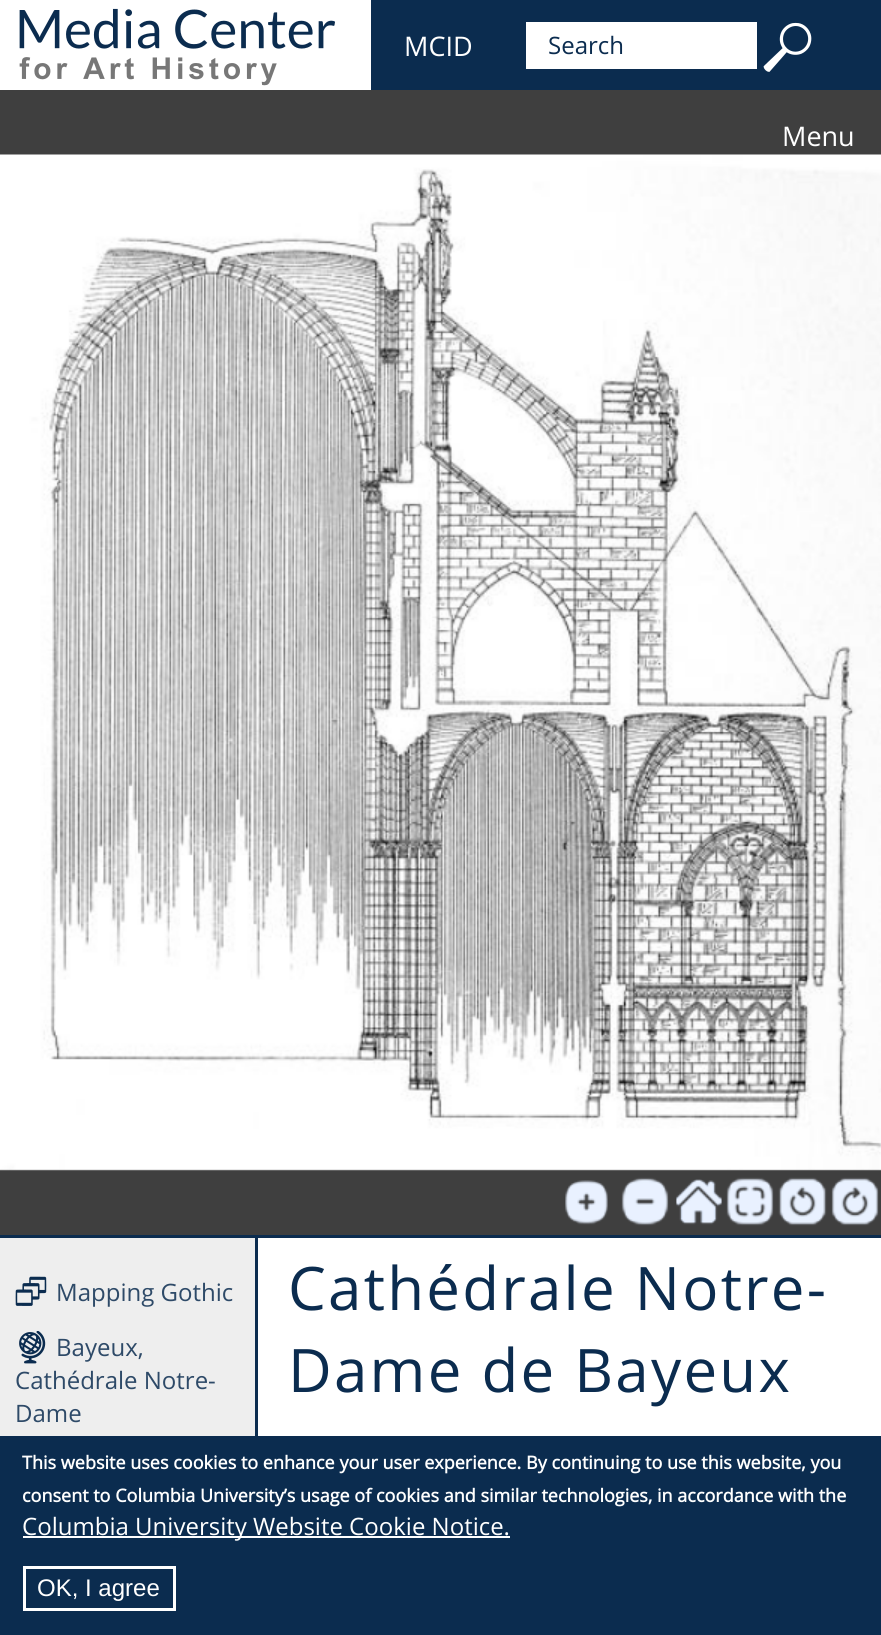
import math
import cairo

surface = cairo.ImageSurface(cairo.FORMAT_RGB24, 881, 1635)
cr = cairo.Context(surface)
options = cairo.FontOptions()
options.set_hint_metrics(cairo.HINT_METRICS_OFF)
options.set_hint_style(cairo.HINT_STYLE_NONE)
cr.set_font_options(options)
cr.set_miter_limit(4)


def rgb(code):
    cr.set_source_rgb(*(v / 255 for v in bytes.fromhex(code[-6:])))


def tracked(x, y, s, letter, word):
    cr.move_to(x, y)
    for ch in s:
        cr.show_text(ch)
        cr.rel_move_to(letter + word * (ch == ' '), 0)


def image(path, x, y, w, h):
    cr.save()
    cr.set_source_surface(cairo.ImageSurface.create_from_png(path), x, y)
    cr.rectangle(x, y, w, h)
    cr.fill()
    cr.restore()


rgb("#ffffff")
cr.paint()
rgb("#0b2c4f")
cr.rectangle(371, 0, 510, 90)
cr.fill()
image("img/1.png", 19, 8, 316, 78)
rgb("#ffffff")
cr.rectangle(526, 22, 231, 47)
cr.fill()
image("img/2.png", 763, 22, 49, 50)
rgb("#3f3f3f")
cr.rectangle(0, 90, 881, 1145)
cr.fill()
image("img/3.png", 0, 154, 881, 1017)
image("img/4.png", 565, 1180, 43, 45)
image("img/5.png", 565, 1180, 43, 44)
image("img/6.png", 621, 1177, 48, 49)
image("img/7.png", 622, 1178, 46, 47)
image("img/8.png", 676, 1179, 46, 46)
image("img/9.png", 676, 1179, 46, 45)
image("img/10.png", 726, 1177, 48, 49)
image("img/11.png", 727, 1178, 46, 47)
image("img/12.png", 778, 1177, 49, 49)
image("img/13.png", 779, 1178, 47, 47)
image("img/14.png", 831, 1177, 48, 49)
image("img/15.png", 832, 1178, 46, 47)
for x, y, w, h, color in [
    (0, 1235, 881, 3, "#0b2c4f"),
    (0, 1238, 255, 198, "#eeeeee"),
    (255, 1238, 3, 198, "#0b2c4f"),
]:
    rgb(color)
    cr.rectangle(x, y, w, h)
    cr.fill()
image("img/16.png", 15, 1276, 32, 30)
image("img/17.png", 19, 1331, 27, 33)
cr.rectangle(0, 1436, 881, 199)
cr.fill()
rgb("#ffffff")
cr.rectangle(23, 1536, 487, 2)
cr.fill()
cr.rectangle(24.5, 1567.5, 150, 42)
cr.set_line_width(3)
cr.stroke()
cr.select_font_face("Open Sans")
cr.set_font_size(27)
cr.move_to(404, 56)
cr.show_text("MCID")
cr.set_font_size(24)
rgb("#0b2c4f")
cr.move_to(548, 54)
cr.show_text("Search")
cr.set_font_size(27)
rgb("#ffffff")
cr.move_to(782, 146)
cr.show_text("Menu")
cr.set_font_size(24)
rgb("#2e4a68")
for x, y, s in [
    (56, 1301, "Mapping Gothic"),
    (56, 1356, "Bayeux,"),
    (15, 1389, "Cathédrale Notre-"),
    (15, 1422, "Dame"),
]:
    cr.move_to(x, y)
    cr.show_text(s)
cr.set_font_size(60)
rgb("#0b2c4f")
tracked(288, 1310, "Cathédrale Notre-", 2.25, 0)
tracked(288, 1392, "Dame de Bayeux", 2.25, 0)
cr.select_font_face("Open Sans", cairo.FONT_SLANT_NORMAL, cairo.FONT_WEIGHT_BOLD)
cr.set_font_size(18)
rgb("#ffffff")
cr.move_to(22, 1469)
cr.show_text("This website uses cookies to enhance your user experience. By continuing to use this website, you")
cr.move_to(22, 1502)
cr.show_text("consent to Columbia University’s usage of cookies and similar technologies, in accordance with the")
cr.select_font_face("Open Sans")
cr.set_font_size(24)
cr.move_to(22, 1535)
cr.show_text("Columbia University Website Cookie Notice.")
cr.select_font_face("Liberation Sans")
cr.move_to(37, 1596)
cr.show_text("OK, I agree")
surface.write_to_png("page.png")
